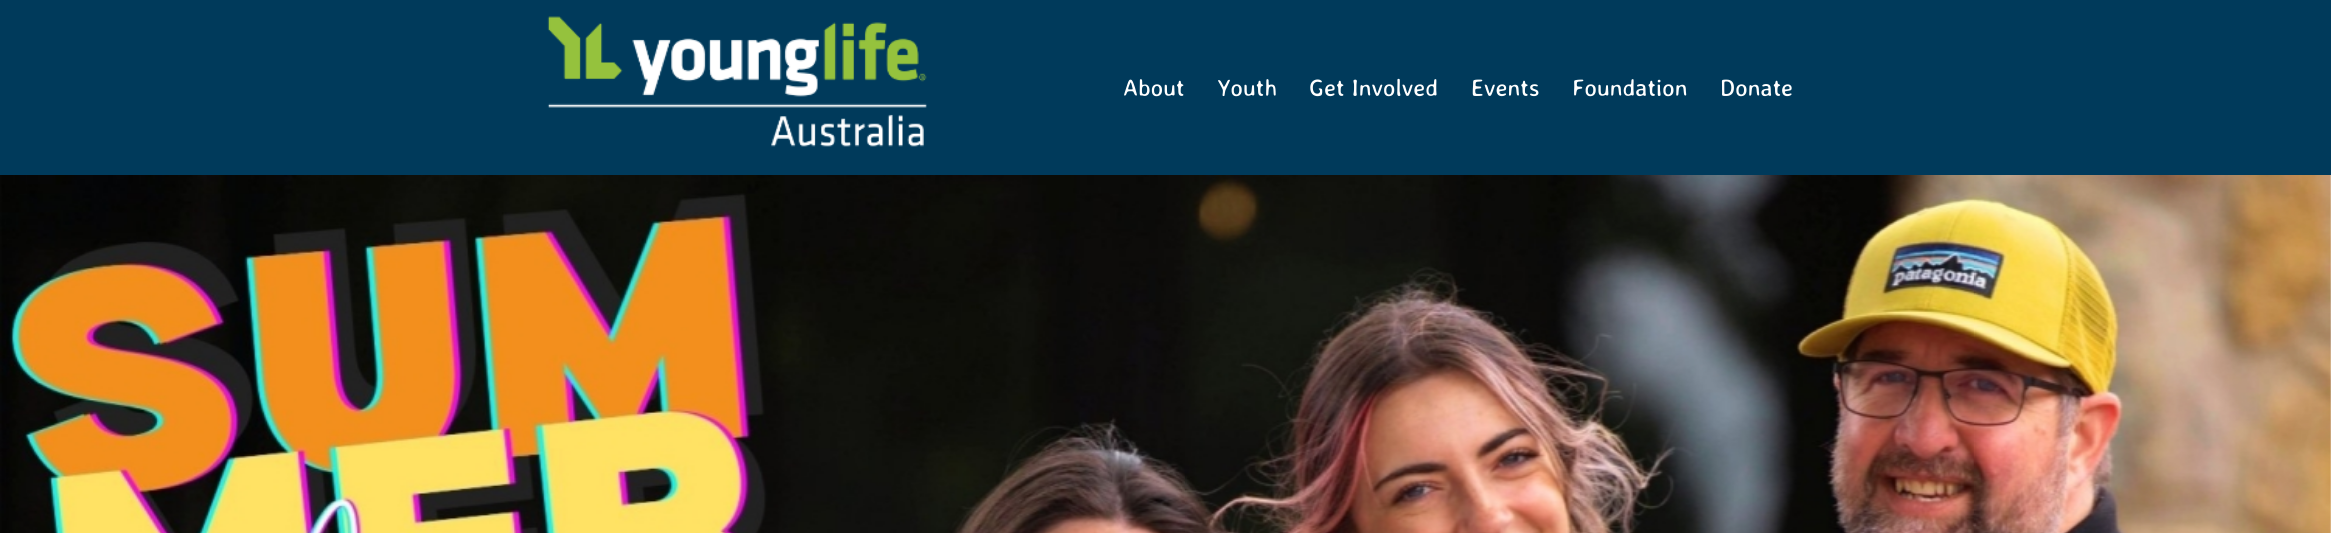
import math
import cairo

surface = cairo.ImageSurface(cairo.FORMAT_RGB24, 2331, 533)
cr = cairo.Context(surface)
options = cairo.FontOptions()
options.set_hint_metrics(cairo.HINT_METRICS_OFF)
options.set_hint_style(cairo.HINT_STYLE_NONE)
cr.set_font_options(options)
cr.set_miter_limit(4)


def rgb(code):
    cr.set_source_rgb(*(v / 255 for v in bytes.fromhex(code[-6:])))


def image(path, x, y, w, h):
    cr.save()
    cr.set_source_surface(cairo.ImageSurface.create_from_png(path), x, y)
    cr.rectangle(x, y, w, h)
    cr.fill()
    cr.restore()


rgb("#ffffff")
cr.paint()
rgb("#003a5b")
cr.rectangle(0, 0, 2331, 175)
cr.fill()
image("img/1.png", 547, 16, 380, 131)
image("img/2.png", 0, 175, 2331, 358)
cr.select_font_face("Averia Sans Libre")
cr.set_font_size(23.75)
rgb("#ffffff")
for x, y, s in [
    (1123, 96, "About"),
    (1217, 96, "Youth"),
    (1309, 96, "Get Involved"),
    (1471, 96, "Events"),
    (1572, 96, "Foundation"),
    (1720, 96, "Donate"),
]:
    cr.move_to(x, y)
    cr.show_text(s)
surface.write_to_png("page.png")
